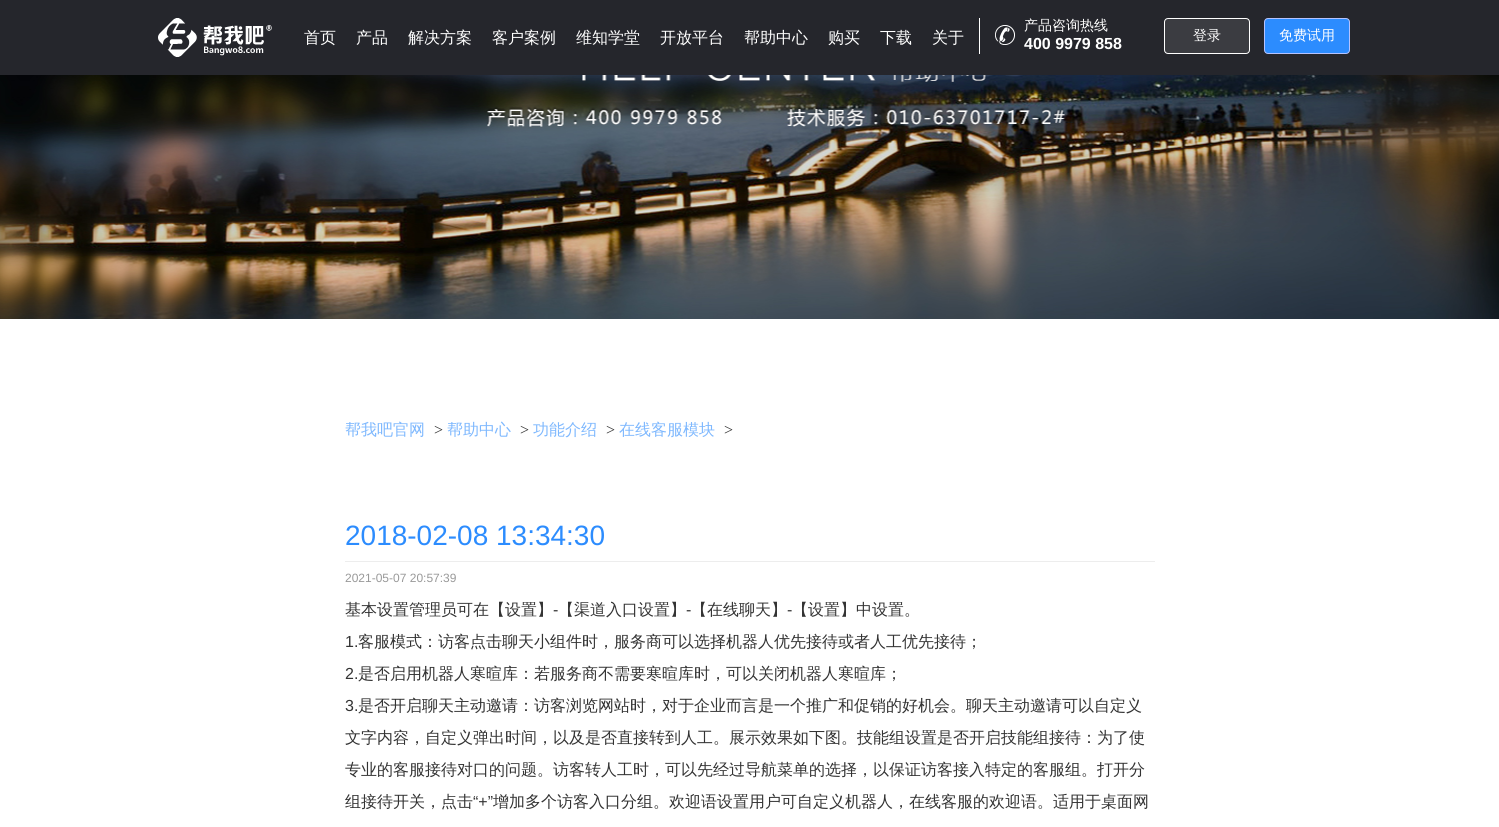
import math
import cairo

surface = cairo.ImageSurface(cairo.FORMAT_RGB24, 1499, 827)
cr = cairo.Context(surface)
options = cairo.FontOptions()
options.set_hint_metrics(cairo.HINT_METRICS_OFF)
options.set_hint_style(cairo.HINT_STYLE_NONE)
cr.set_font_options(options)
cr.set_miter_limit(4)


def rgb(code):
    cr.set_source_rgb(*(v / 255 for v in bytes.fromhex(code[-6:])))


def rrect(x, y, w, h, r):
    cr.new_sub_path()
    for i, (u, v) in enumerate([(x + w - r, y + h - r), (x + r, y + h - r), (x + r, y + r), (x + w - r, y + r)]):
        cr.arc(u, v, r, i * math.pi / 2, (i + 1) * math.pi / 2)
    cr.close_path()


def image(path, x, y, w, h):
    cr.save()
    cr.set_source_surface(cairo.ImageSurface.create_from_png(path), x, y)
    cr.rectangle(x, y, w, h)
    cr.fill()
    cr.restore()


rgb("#ffffff")
cr.paint()
rgb("#25262c")
cr.rectangle(0, 0, 1499, 75)
cr.fill()
image("img/1.png", 158, 18, 114, 39)
rgb("#ffffff")
cr.rectangle(979, 18, 1, 36)
cr.fill()
image("img/2.png", 995, 25, 20, 20)
rgb("#3b3c41")
rrect(1164.5, 18.5, 85, 35, 3.5)
cr.fill_preserve()
rgb("#ffffff")
cr.set_line_width(1)
cr.stroke()
rgb("#2c8cfe")
rrect(1264.5, 18.5, 85, 35, 3.5)
cr.fill_preserve()
rgb("#b4c3ff")
cr.stroke()
image("img/3.png", 0, 75, 1499, 244)
rgb("#ededed")
cr.rectangle(345, 561, 810, 1)
cr.fill()
cr.select_font_face("WenQuanYi Zen Hei Medium")
cr.set_font_size(16)
rgb("#ffffff")
for x, y, s in [
    (304, 43, "首页"),
    (356, 43, "产品"),
    (408, 43, "解决方案"),
    (492, 43, "客户案例"),
    (576, 43, "维知学堂"),
    (660, 43, "开放平台"),
    (744, 43, "帮助中心"),
    (828, 43, "购买"),
    (880, 43, "下载"),
    (932, 43, "关于"),
]:
    cr.move_to(x, y)
    cr.show_text(s)
cr.set_font_size(14)
cr.move_to(1024, 30)
cr.show_text("产品咨询热线")
cr.select_font_face("Liberation Sans", cairo.FONT_SLANT_NORMAL, cairo.FONT_WEIGHT_BOLD)
cr.set_font_size(16)
cr.move_to(1024, 49)
cr.show_text("400 9979 858")
cr.select_font_face("WenQuanYi Zen Hei Medium")
cr.set_font_size(14)
cr.move_to(1193, 40)
cr.show_text("登录")
cr.move_to(1279, 40)
cr.show_text("免费试用")
cr.set_font_size(16)
rgb("#7eb8fe")
cr.move_to(345, 435)
cr.show_text("帮我吧官网")
cr.select_font_face("Liberation Serif")
rgb("#333333")
cr.move_to(434, 435)
cr.show_text(">")
cr.select_font_face("WenQuanYi Zen Hei Medium")
rgb("#7eb8fe")
cr.move_to(447, 435)
cr.show_text("帮助中心")
cr.select_font_face("Liberation Serif")
rgb("#333333")
cr.move_to(520, 435)
cr.show_text(">")
cr.select_font_face("WenQuanYi Zen Hei Medium")
rgb("#7eb8fe")
cr.move_to(533, 435)
cr.show_text("功能介绍")
cr.select_font_face("Liberation Serif")
rgb("#333333")
cr.move_to(606, 435)
cr.show_text(">")
cr.select_font_face("WenQuanYi Zen Hei Medium")
rgb("#7eb8fe")
cr.move_to(619, 435)
cr.show_text("在线客服模块")
cr.select_font_face("Liberation Serif")
rgb("#333333")
cr.move_to(724, 435)
cr.show_text(">")
cr.select_font_face("Liberation Sans")
cr.set_font_size(28)
rgb("#2c8cfe")
cr.move_to(345, 545)
cr.show_text("2018-02-08 13:34:30")
cr.set_font_size(12)
rgb("#999999")
cr.move_to(345, 582)
cr.show_text("2021-05-07 20:57:39")
cr.select_font_face("WenQuanYi Zen Hei Medium")
cr.set_font_size(16)
rgb("#333333")
cr.move_to(345, 615)
cr.show_text("基本设置管理员可在【设置】")
cr.select_font_face("Liberation Sans")
cr.move_to(553, 615)
cr.show_text("-")
cr.select_font_face("WenQuanYi Zen Hei Medium")
cr.move_to(558, 615)
cr.show_text("【渠道入口设置】")
cr.select_font_face("Liberation Sans")
cr.move_to(686, 615)
cr.show_text("-")
cr.select_font_face("WenQuanYi Zen Hei Medium")
cr.move_to(691, 615)
cr.show_text("【在线聊天】")
cr.select_font_face("Liberation Sans")
cr.move_to(787, 615)
cr.show_text("-")
cr.select_font_face("WenQuanYi Zen Hei Medium")
cr.move_to(792, 615)
cr.show_text("【设置】中设置。")
cr.select_font_face("Liberation Sans")
cr.move_to(345, 647)
cr.show_text("1.")
cr.select_font_face("WenQuanYi Zen Hei Medium")
cr.move_to(358, 647)
cr.show_text("客服模式：访客点击聊天小组件时，服务商可以选择机器人优先接待或者人工优先接待；")
cr.select_font_face("Liberation Sans")
cr.move_to(345, 679)
cr.show_text("2.")
cr.select_font_face("WenQuanYi Zen Hei Medium")
cr.move_to(358, 679)
cr.show_text("是否启用机器人寒暄库：若服务商不需要寒暄库时，可以关闭机器人寒暄库；")
cr.select_font_face("Liberation Sans")
cr.move_to(345, 711)
cr.show_text("3.")
cr.select_font_face("WenQuanYi Zen Hei Medium")
for x, y, s in [
    (358, 711, "是否开启聊天主动邀请：访客浏览网站时，对于企业而言是一个推广和促销的好机会。聊天主动邀请可以自定义"),
    (345, 743, "文字内容，自定义弹出时间，以及是否直接转到人工。展示效果如下图。技能组设置是否开启技能组接待：为了使"),
    (345, 775, "专业的客服接待对口的问题。访客转人工时，可以先经过导航菜单的选择，以保证访客接入特定的客服组。打开分"),
    (345, 807, "组接待开关，点击"),
]:
    cr.move_to(x, y)
    cr.show_text(s)
cr.select_font_face("Liberation Sans")
cr.move_to(473, 807)
cr.show_text("“+”")
cr.select_font_face("WenQuanYi Zen Hei Medium")
cr.move_to(493, 807)
cr.show_text("增加多个访客入口分组。欢迎语设置用户可自定义机器人，在线客服的欢迎语。适用于桌面网")
surface.write_to_png("page.png")
